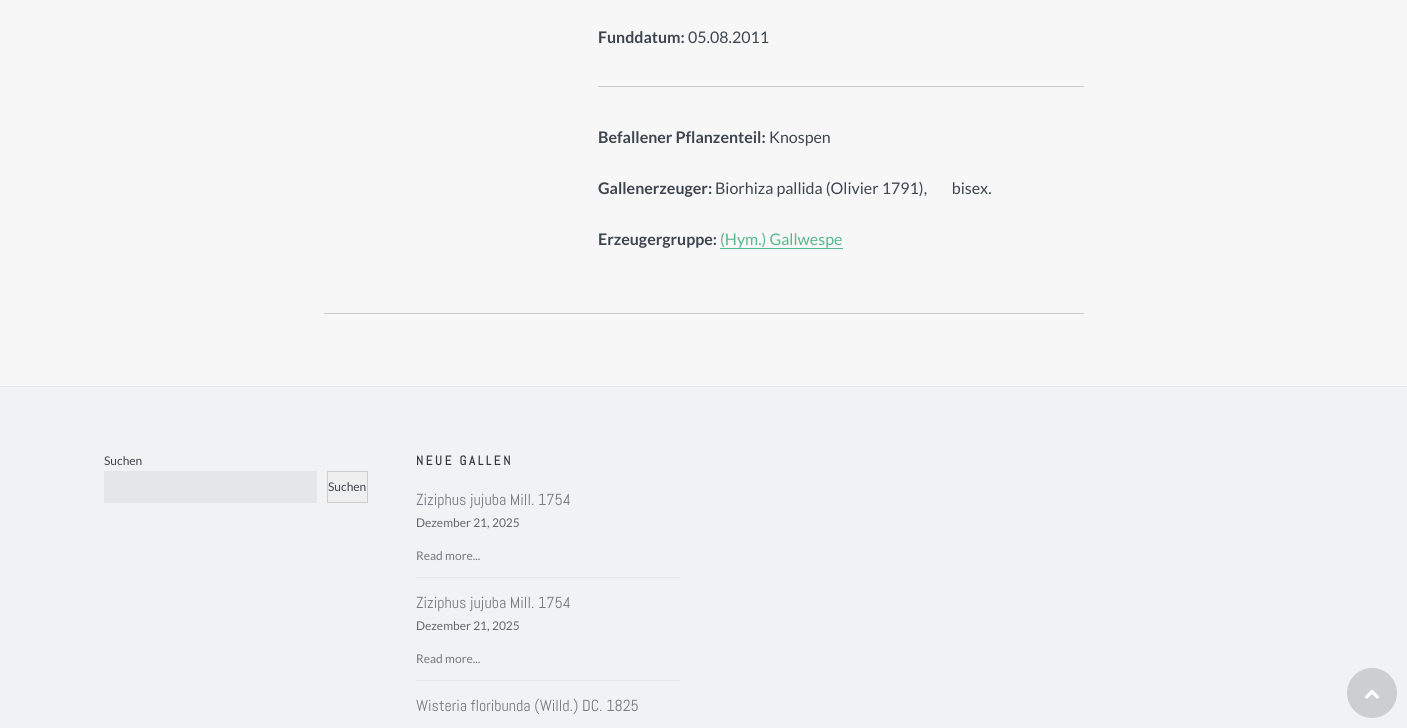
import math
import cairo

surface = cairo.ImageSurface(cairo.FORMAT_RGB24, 1407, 728)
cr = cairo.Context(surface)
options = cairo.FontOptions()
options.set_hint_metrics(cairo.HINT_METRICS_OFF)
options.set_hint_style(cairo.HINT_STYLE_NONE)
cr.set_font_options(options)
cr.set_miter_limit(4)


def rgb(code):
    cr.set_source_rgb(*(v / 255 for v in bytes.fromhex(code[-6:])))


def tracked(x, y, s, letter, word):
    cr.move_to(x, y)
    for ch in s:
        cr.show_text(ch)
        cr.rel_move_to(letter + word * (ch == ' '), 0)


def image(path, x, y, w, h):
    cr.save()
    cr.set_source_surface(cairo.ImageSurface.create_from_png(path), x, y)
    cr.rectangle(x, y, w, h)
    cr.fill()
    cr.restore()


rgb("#f7f7f7")
cr.paint()
for x, y, w, h, color in [
    (598, 86, 486, 1, "#cccccc"),
    (720, 248, 123, 1, "#58b88d"),
    (324, 313, 760, 1, "#cccccc"),
    (0, 387, 1407, 341, "#f1f2f3"),
    (0, 386, 1407, 1, "#e7e8e9"),
    (104, 471, 213, 32, "#e5e6e7"),
]:
    rgb(color)
    cr.rectangle(x, y, w, h)
    cr.fill()
rgb("#efefef")
cr.rectangle(327.5, 471.5, 40, 31)
cr.fill_preserve()
rgb("#cccccc")
cr.set_line_width(1)
cr.stroke()
rgb("#e7e6e6")
cr.rectangle(416, 577, 264, 1)
cr.fill()
cr.rectangle(416, 680, 264, 1)
cr.fill()
rgb("#cdcecf")
cr.arc(1372, 693, 25, 0, 2 * math.pi)
cr.fill()
image("img/1.png", 1365, 689, 14, 10)
cr.select_font_face("Lato", cairo.FONT_SLANT_NORMAL, cairo.FONT_WEIGHT_BOLD)
cr.set_font_size(16)
rgb("#3d454f")
cr.move_to(598, 43)
cr.show_text("Funddatum:")
cr.select_font_face("Lato")
cr.move_to(688, 43)
cr.show_text("05.08.2011")
cr.select_font_face("Lato", cairo.FONT_SLANT_NORMAL, cairo.FONT_WEIGHT_BOLD)
cr.move_to(598, 143)
cr.show_text("Befallener Pflanzenteil:")
cr.select_font_face("Lato")
cr.move_to(769, 143)
cr.show_text("Knospen")
cr.select_font_face("Lato", cairo.FONT_SLANT_NORMAL, cairo.FONT_WEIGHT_BOLD)
cr.move_to(598, 194)
cr.show_text("Gallenerzeuger:")
cr.select_font_face("Lato")
cr.move_to(715, 194)
cr.show_text("Biorhiza pallida (Olivier 1791),        bisex.")
cr.select_font_face("Lato", cairo.FONT_SLANT_NORMAL, cairo.FONT_WEIGHT_BOLD)
cr.move_to(598, 245)
cr.show_text("Erzeugergruppe:")
cr.select_font_face("Lato")
rgb("#58b88d")
cr.move_to(720, 245)
cr.show_text("(Hym.) Gallwespe")
cr.set_font_size(12)
rgb("#3d454f")
cr.move_to(104, 465)
cr.show_text("Suchen")
cr.move_to(328, 491)
cr.show_text("Suchen")
cr.select_font_face("Abel", cairo.FONT_SLANT_NORMAL, cairo.FONT_WEIGHT_BOLD)
cr.set_font_size(13)
rgb("#313740")
tracked(416, 465, "NEUE GALLEN", 2.6, 0)
cr.select_font_face("Abel")
cr.set_font_size(16)
rgb("#737980")
cr.move_to(416, 505)
cr.show_text("Ziziphus jujuba Mill. 1754")
cr.select_font_face("Lato")
cr.set_font_size(12)
rgb("#666666")
cr.move_to(416, 527)
cr.show_text("Dezember 21, 2025")
rgb("#737980")
cr.move_to(416, 560)
cr.show_text("Read more...")
cr.select_font_face("Abel")
cr.set_font_size(16)
cr.move_to(416, 608)
cr.show_text("Ziziphus jujuba Mill. 1754")
cr.select_font_face("Lato")
cr.set_font_size(12)
rgb("#666666")
cr.move_to(416, 630)
cr.show_text("Dezember 21, 2025")
rgb("#737980")
cr.move_to(416, 663)
cr.show_text("Read more...")
cr.select_font_face("Abel")
cr.set_font_size(16)
cr.move_to(416, 711)
cr.show_text("Wisteria floribunda (Willd.) DC. 1825")
surface.write_to_png("page.png")
